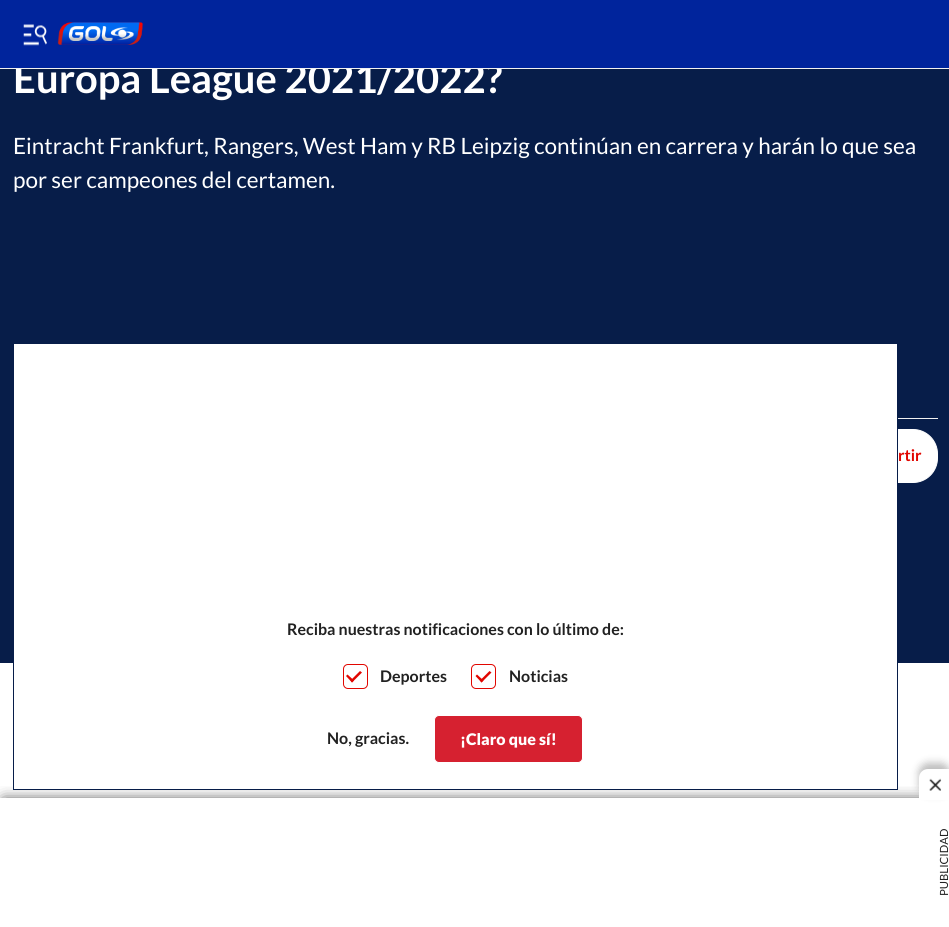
import math
import cairo

surface = cairo.ImageSurface(cairo.FORMAT_RGB24, 949, 927)
cr = cairo.Context(surface)
options = cairo.FontOptions()
options.set_hint_metrics(cairo.HINT_METRICS_OFF)
options.set_hint_style(cairo.HINT_STYLE_NONE)
cr.set_font_options(options)
cr.set_miter_limit(4)


def rgb(code):
    cr.set_source_rgb(*(v / 255 for v in bytes.fromhex(code[-6:])))


def rrect(x, y, w, h, r):
    cr.new_sub_path()
    for i, (u, v) in enumerate([(x + w - r, y + h - r), (x + r, y + h - r), (x + r, y + r), (x + w - r, y + r)]):
        cr.arc(u, v, r, i * math.pi / 2, (i + 1) * math.pi / 2)
    cr.close_path()


def soft_shadow(x, y, w, h, r, blur, alpha):
    cr.push_group_with_content(cairo.CONTENT_ALPHA)
    cr.set_operator(cairo.OPERATOR_SOURCE)
    for i in range(15, -16, -2):
        e = blur * i / 6
        if min(w, h) + 2 * e > 0:
            cr.set_source_rgba(0, 0, 0, alpha * math.erfc((i - 1) / 8.5) / 2)
            rrect(x - e, y - e, w + 2 * e, h + 2 * e, max(0, min(r + e + blur * .6, min(w, h) / 2 + e)))
            cr.fill()
    cr.mask(cr.pop_group())


def image(path, x, y, w, h):
    cr.save()
    cr.set_source_surface(cairo.ImageSurface.create_from_png(path), x, y)
    cr.rectangle(x, y, w, h)
    cr.fill()
    cr.restore()


rgb("#ffffff")
cr.paint()
rgb("#071d49")
cr.rectangle(0, 69, 949, 594)
cr.fill()
rgb("#f1f1f1")
cr.rectangle(898, 418, 40, 1)
cr.fill()
rgb("#ffffff")
rrect(791.5, 429.5, 146, 53, 24.5)
cr.fill_preserve()
cr.set_line_width(1)
cr.stroke()
cr.save()
cr.rectangle(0, 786, 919, 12)
cr.clip()
rgb("#212121")
soft_shadow(4, 801, 942, 123, 0, 7.5, 1)
cr.restore()
cr.rectangle(13.5, 343.5, 884, 446)
cr.fill_preserve()
rgb("#071d49")
cr.stroke()
rrect(343.5, 664.5, 24, 24, 4.5)
rgb("#e10600")
cr.stroke()
cr.new_path()
cr.move_to(360, 671)
cr.line_to(362, 672.5)
cr.line_to(352, 682.5)
cr.line_to(350.5, 680.5)
cr.close_path()
cr.fill()
cr.new_path()
cr.move_to(347.5, 674.5)
cr.line_to(354, 680.5)
cr.line_to(352, 682.5)
cr.line_to(346, 676)
cr.close_path()
cr.fill()
rrect(471.5, 664.5, 24, 24, 4.5)
cr.stroke()
cr.new_path()
cr.move_to(489.5, 671)
cr.line_to(491.5, 672.5)
cr.line_to(481.5, 682.5)
cr.line_to(480, 680.5)
cr.close_path()
cr.fill()
cr.new_path()
cr.move_to(477, 674.5)
cr.line_to(483.5, 680.5)
cr.line_to(481.5, 682.5)
cr.line_to(475.5, 676)
cr.close_path()
cr.fill()
rgb("#d62130")
rrect(434.5, 715.5, 148, 47, 4.5)
cr.fill_preserve()
rgb("#ffffff")
cr.stroke()
rgb("#212121")
soft_shadow(919, 763, 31, 31, 9, 4, 0.3)
rgb("#ffffff")
cr.new_path()
cr.move_to(928, 769)
cr.line_to(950, 769)
cr.line_to(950, 800)
cr.line_to(919, 800)
cr.line_to(919, 778)
cr.curve_to(919, 773, 923, 769, 928, 769)
cr.close_path()
cr.fill()
image("img/3.png", 929, 778, 13, 13)
cr.select_font_face("Lato", cairo.FONT_SLANT_NORMAL, cairo.FONT_WEIGHT_BOLD)
cr.set_font_size(40)
cr.move_to(13, 93)
cr.show_text("Europa League 2021/2022?")
rgb("#00249c")
cr.rectangle(0, 0, 949, 68)
cr.fill()
image("img/1.png", 23, 24, 24, 22)
image("img/2.png", 57, 22, 87, 23)
rgb("#f1f1f1")
cr.rectangle(0, 68, 949, 1)
cr.fill()
cr.select_font_face("Lato")
cr.set_font_size(22.5)
rgb("#ffffff")
cr.move_to(13, 154)
cr.show_text("Eintracht Frankfurt, Rangers, West Ham y RB Leipzig continúan en carrera y harán lo que sea")
cr.move_to(13, 188)
cr.show_text("por ser campeones del certamen.")
cr.select_font_face("Lato", cairo.FONT_SLANT_NORMAL, cairo.FONT_WEIGHT_BOLD)
cr.set_font_size(16)
rgb("#e10600")
cr.move_to(898, 461)
cr.show_text("rtir")
rgb("#212121")
for x, y, s in [
    (287, 635, "Reciba nuestras notificaciones con lo último de:"),
    (380, 682, "Deportes"),
    (509, 682, "Noticias"),
    (327, 744, "No, gracias."),
]:
    cr.move_to(x, y)
    cr.show_text(s)
cr.select_font_face("Lato Black")
rgb("#ffffff")
cr.move_to(460, 745)
cr.show_text("¡Claro que sí!")
cr.select_font_face("Lato")
cr.set_font_size(11.25)
rgb("#212121")
cr.save()
cr.translate(948, 896)
cr.rotate(-90 * math.pi / 180)
cr.move_to(0, 0)
cr.show_text("PUBLICIDAD")
cr.restore()
surface.write_to_png("page.png")
